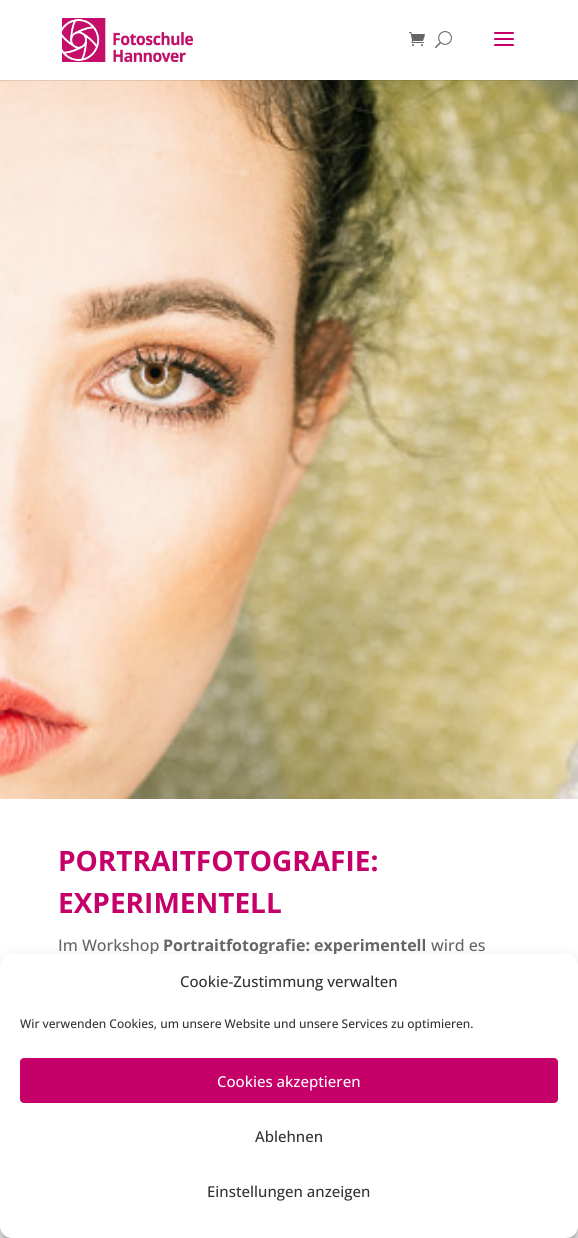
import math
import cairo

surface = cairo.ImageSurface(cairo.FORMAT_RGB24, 578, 1238)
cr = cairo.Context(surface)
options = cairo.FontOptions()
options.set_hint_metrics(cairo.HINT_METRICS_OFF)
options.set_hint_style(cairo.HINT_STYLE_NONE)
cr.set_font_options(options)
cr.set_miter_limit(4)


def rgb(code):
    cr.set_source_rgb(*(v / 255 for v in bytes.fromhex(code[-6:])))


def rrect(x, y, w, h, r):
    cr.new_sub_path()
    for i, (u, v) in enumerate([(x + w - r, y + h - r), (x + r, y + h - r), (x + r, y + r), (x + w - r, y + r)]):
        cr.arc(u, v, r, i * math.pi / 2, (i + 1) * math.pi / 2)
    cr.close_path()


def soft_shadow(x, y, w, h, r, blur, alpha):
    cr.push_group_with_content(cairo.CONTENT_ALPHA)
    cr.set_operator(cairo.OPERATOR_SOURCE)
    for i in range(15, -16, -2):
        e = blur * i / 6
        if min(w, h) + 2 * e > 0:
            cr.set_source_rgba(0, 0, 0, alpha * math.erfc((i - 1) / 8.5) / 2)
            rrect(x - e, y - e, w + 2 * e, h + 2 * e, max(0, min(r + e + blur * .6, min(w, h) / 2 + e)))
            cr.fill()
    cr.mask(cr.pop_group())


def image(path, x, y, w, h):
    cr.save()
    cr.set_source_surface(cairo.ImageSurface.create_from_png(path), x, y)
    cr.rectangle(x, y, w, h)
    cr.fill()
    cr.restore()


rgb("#ffffff")
cr.paint()
image("img/5.png", 0, 80, 578, 719)
cr.set_source_rgba(0, 0, 0, 0.1)
cr.rectangle(0, 80, 578, 1)
cr.fill()
image("img/1.png", 62, 18, 131, 44)
image("img/2.png", 409, 32, 16, 14)
image("img/3.png", 435, 31, 17, 18)
image("img/4.png", 494, 32, 20, 14)
rgb("#000000")
soft_shadow(0, 960, 578, 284, 12, 3, 0.23)
soft_shadow(0, 964, 578, 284, 12, 10, 0.19)
cr.select_font_face("Open Sans", cairo.FONT_SLANT_NORMAL, cairo.FONT_WEIGHT_BOLD)
cr.set_font_size(28)
rgb("#c50069")
cr.move_to(58, 871)
cr.show_text("PORTRAITFOTOGRAFIE:")
cr.move_to(58, 913)
cr.show_text("EXPERIMENTELL")
cr.select_font_face("Open Sans Medium")
cr.set_font_size(16)
rgb("#666666")
cr.move_to(58, 951)
cr.show_text("Im Workshop")
cr.select_font_face("Open Sans", cairo.FONT_SLANT_NORMAL, cairo.FONT_WEIGHT_BOLD)
cr.move_to(163, 951)
cr.show_text("Portraitfotografie: experimentell")
cr.select_font_face("Open Sans Medium")
cr.move_to(431, 951)
cr.show_text("wird es")
rgb("#ffffff")
rrect(0, 954, 578, 284, 12)
cr.fill()
cr.set_font_size(15)
rgb("#333333")
cr.move_to(180, 987)
cr.show_text("Cookie-Zustimmung verwalten")
cr.set_font_size(12)
cr.move_to(20, 1028)
cr.show_text("Wir verwenden Cookies, um unsere Website und unsere Services zu optimieren.")
rgb("#c50069")
rrect(20.5, 1058.5, 537, 44, 3.5)
cr.fill_preserve()
cr.set_line_width(1)
cr.stroke()
cr.set_font_size(15)
rgb("#ffffff")
cr.move_to(217, 1087)
cr.show_text("Cookies akzeptieren")
rgb("#333333")
cr.move_to(255, 1142)
cr.show_text("Ablehnen")
cr.move_to(207, 1197)
cr.show_text("Einstellungen anzeigen")
surface.write_to_png("page.png")
